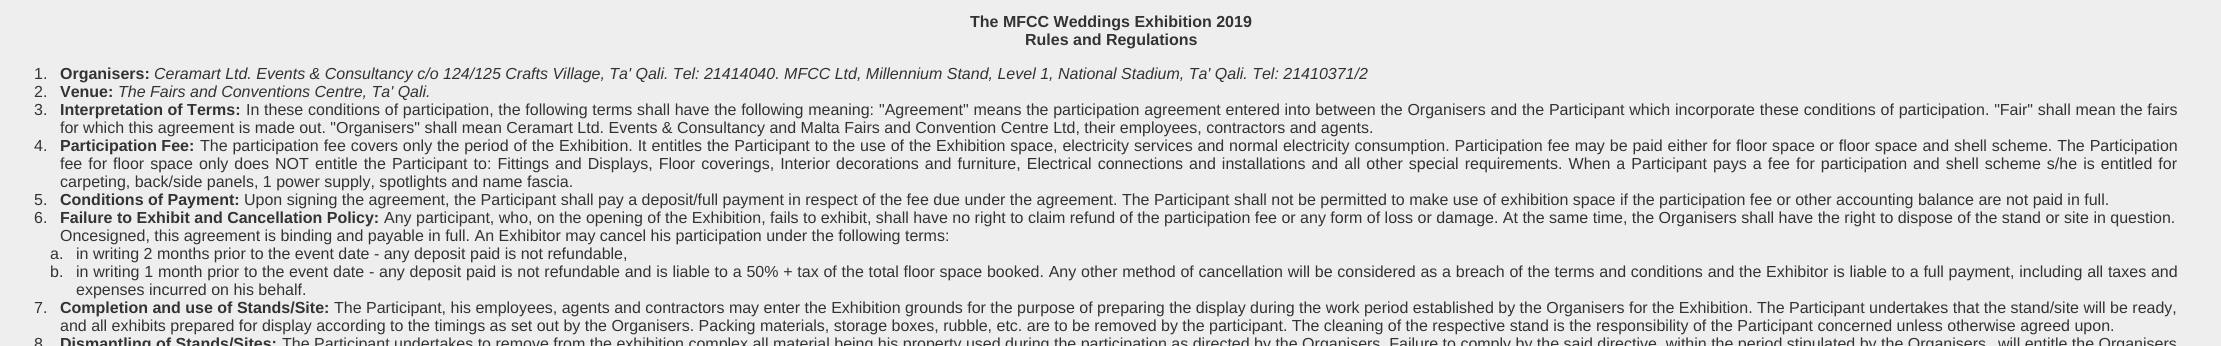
import math
import cairo

surface = cairo.ImageSurface(cairo.FORMAT_RGB24, 2221, 346)
cr = cairo.Context(surface)
options = cairo.FontOptions()
options.set_hint_metrics(cairo.HINT_METRICS_OFF)
options.set_hint_style(cairo.HINT_STYLE_NONE)
cr.set_font_options(options)
cr.set_miter_limit(4)


def rgb(code):
    cr.set_source_rgb(*(v / 255 for v in bytes.fromhex(code[-6:])))


def tracked(x, y, s, letter, word):
    cr.move_to(x, y)
    for ch in s:
        cr.show_text(ch)
        cr.rel_move_to(letter + word * (ch == ' '), 0)


rgb("#eeeeee")
cr.paint()
cr.select_font_face("Liberation Sans", cairo.FONT_SLANT_NORMAL, cairo.FONT_WEIGHT_BOLD)
cr.set_font_size(16)
rgb("#333333")
cr.move_to(970, 27)
cr.show_text("The MFCC Weddings Exhibition 2019")
cr.move_to(1025, 45)
cr.show_text("Rules and Regulations")
cr.select_font_face("Liberation Sans")
cr.move_to(34, 79)
cr.show_text("1.")
cr.select_font_face("Liberation Sans", cairo.FONT_SLANT_NORMAL, cairo.FONT_WEIGHT_BOLD)
cr.move_to(60, 79)
cr.show_text("Organisers:")
cr.select_font_face("Liberation Sans", cairo.FONT_SLANT_ITALIC)
cr.move_to(154, 79)
cr.show_text("Ceramart Ltd. Events & Consultancy c/o 124/125 Crafts Village, Ta' Qali. Tel: 21414040. MFCC Ltd, Millennium Stand, Level 1, National Stadium, Ta' Qali. Tel: 21410371/2")
cr.select_font_face("Liberation Sans")
cr.move_to(34, 97)
cr.show_text("2.")
cr.select_font_face("Liberation Sans", cairo.FONT_SLANT_NORMAL, cairo.FONT_WEIGHT_BOLD)
cr.move_to(60, 97)
cr.show_text("Venue:")
cr.select_font_face("Liberation Sans", cairo.FONT_SLANT_ITALIC)
cr.move_to(118, 97)
cr.show_text("The Fairs and Conventions Centre, Ta' Qali.")
cr.select_font_face("Liberation Sans")
cr.move_to(34, 115)
cr.show_text("3.")
cr.select_font_face("Liberation Sans", cairo.FONT_SLANT_NORMAL, cairo.FONT_WEIGHT_BOLD)
cr.move_to(60, 115)
cr.show_text("Interpretation of Terms:")
cr.select_font_face("Liberation Sans")
tracked(246, 115, "In these conditions of participation, the following terms shall have the following meaning:", 0, 0.3)
tracked(879, 115, "\"Agreement\" means the participation agreement entered into between the Organisers and the Participant which incorporate these conditions of participation. \"Fair\" shall mean the fairs", 0, 0.33)
cr.move_to(60, 133)
cr.show_text("for which this agreement is made out. \"Organisers\" shall mean Ceramart Ltd. Events & Consultancy and Malta Fairs and Convention Centre Ltd, their employees, contractors and agents.")
cr.move_to(34, 151)
cr.show_text("4.")
cr.select_font_face("Liberation Sans", cairo.FONT_SLANT_NORMAL, cairo.FONT_WEIGHT_BOLD)
cr.move_to(60, 151)
cr.show_text("Participation Fee:")
cr.select_font_face("Liberation Sans")
tracked(200, 151, "The participation fee covers only the period of the Exhibition. It entitles the Participant to the use of the Exhibition space, electricity services and normal electricity consumption. Participation fee may be paid either for floor space or floor space and shell scheme. The Participation", 0, 0.45)
tracked(60, 169, "fee for floor space only does NOT entitle the Participant to: Fittings and Displays, Floor coverings, Interior decorations and furniture, Electrical connections and installations and all other special requirements. When a Participant pays a fee for participation and shell scheme s/he is entitled for", 0, 1.6)
cr.move_to(60, 187)
cr.show_text("carpeting, back/side panels, 1 power supply, spotlights and name fascia.")
cr.move_to(34, 205)
cr.show_text("5.")
cr.select_font_face("Liberation Sans", cairo.FONT_SLANT_NORMAL, cairo.FONT_WEIGHT_BOLD)
cr.move_to(60, 205)
cr.show_text("Conditions of Payment:")
cr.select_font_face("Liberation Sans")
cr.move_to(244, 205)
cr.show_text("Upon signing the agreement, the Participant shall pay a deposit/full payment in respect of the fee due under the agreement. The Participant shall not be permitted to make use of exhibition space if the participation fee or other accounting balance are not paid in full.")
cr.move_to(34, 223)
cr.show_text("6.")
cr.select_font_face("Liberation Sans", cairo.FONT_SLANT_NORMAL, cairo.FONT_WEIGHT_BOLD)
cr.move_to(60, 223)
cr.show_text("Failure to Exhibit and Cancellation Policy:")
cr.select_font_face("Liberation Sans")
for x, y, s in [
    (384, 223, "Any participant, who, on the opening of the Exhibition, fails to exhibit, shall have no right to claim refund of the participation fee or any form of loss or damage. At the same time, the Organisers shall have the right to dispose of the stand or site in question."),
    (60, 241, "Oncesigned, this agreement is binding and payable in full. An Exhibitor may cancel his participation under the following terms:"),
    (50, 259, "a."),
    (76, 259, "in writing 2 months prior to the event date - any deposit paid is not refundable,"),
    (50, 277, "b."),
]:
    cr.move_to(x, y)
    cr.show_text(s)
tracked(76, 277, "in writing 1 month prior to the event date - any deposit paid is not refundable and is liable to a 50% + tax of the total floor space booked. Any other method of cancellation will be considered as a breach of the terms and conditions and the Exhibitor is liable to a full payment, including all taxes and", 0, 0.33)
cr.move_to(76, 295)
cr.show_text("expenses incurred on his behalf.")
cr.move_to(34, 313)
cr.show_text("7.")
cr.select_font_face("Liberation Sans", cairo.FONT_SLANT_NORMAL, cairo.FONT_WEIGHT_BOLD)
cr.move_to(60, 313)
cr.show_text("Completion and use of Stands/Site:")
cr.select_font_face("Liberation Sans")
for x, y, s in [
    (334, 313, "The Participant, his employees, agents and contractors may enter the Exhibition grounds for the purpose of preparing the display during the work period established by the Organisers for the Exhibition. The Participant undertakes that the stand/site will be ready,"),
    (60, 331, "and all exhibits prepared for display according to the timings as set out by the Organisers. Packing materials, storage boxes, rubble, etc. are to be removed by the participant. The cleaning of the respective stand is the responsibility of the Participant concerned unless otherwise agreed upon."),
    (34, 349, "8"),
]:
    cr.move_to(x, y)
    cr.show_text(s)
cr.select_font_face("Liberation Sans", cairo.FONT_SLANT_NORMAL, cairo.FONT_WEIGHT_BOLD)
cr.move_to(60, 349)
cr.show_text("Dismantling of Stands/Sites:")
cr.select_font_face("Liberation Sans")
cr.move_to(282, 349)
cr.show_text("The Participant undertakes to remove from the exhibition complex all material being his property used during the participation as directed by the Organisers. Failure to comply by the said directive, within the period stipulated by the Organisers,")
cr.move_to(1998, 349)
cr.show_text("will entitle the Organisers")
surface.write_to_png("page.png")
